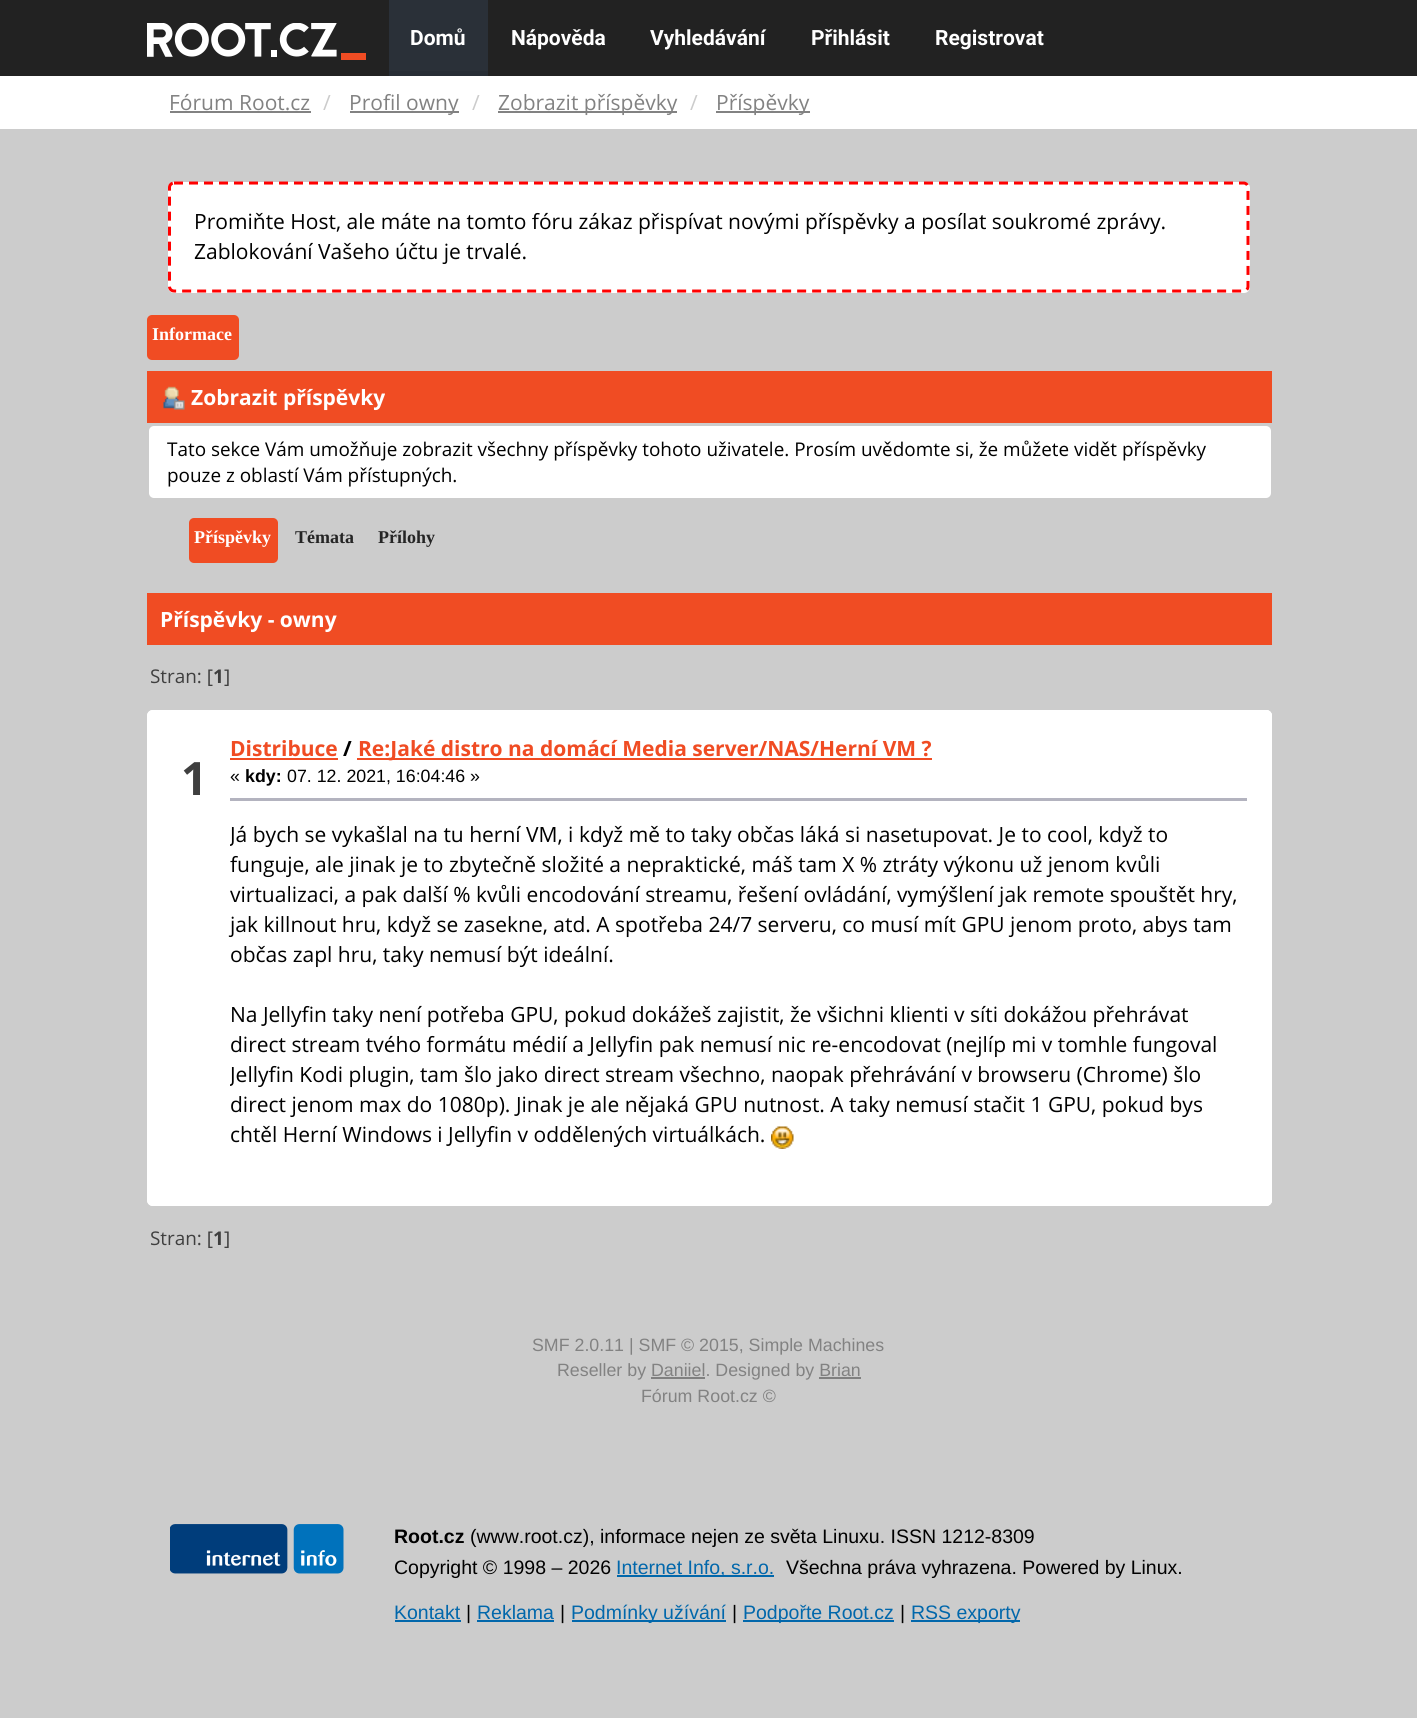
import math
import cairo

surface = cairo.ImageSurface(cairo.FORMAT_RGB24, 1417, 1718)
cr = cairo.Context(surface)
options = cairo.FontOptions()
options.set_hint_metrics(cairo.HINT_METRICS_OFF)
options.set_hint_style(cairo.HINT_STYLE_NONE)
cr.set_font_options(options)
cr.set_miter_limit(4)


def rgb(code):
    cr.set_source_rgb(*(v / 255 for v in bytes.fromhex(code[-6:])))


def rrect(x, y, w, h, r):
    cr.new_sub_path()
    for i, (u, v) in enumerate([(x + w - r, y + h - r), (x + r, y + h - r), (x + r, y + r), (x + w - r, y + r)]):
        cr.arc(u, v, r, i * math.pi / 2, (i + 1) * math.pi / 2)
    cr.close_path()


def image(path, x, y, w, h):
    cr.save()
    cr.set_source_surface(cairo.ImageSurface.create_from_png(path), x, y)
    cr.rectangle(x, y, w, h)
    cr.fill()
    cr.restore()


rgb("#cccccc")
cr.paint()
rgb("#222222")
cr.rectangle(0, 0, 1417, 76)
cr.fill()
image("img/1.png", 147, 23, 219, 37)
for x, y, w, h, color in [
    (389, 0, 99, 71, "#2a3038"),
    (389, 71, 99, 5, "#272d35"),
    (0, 76, 1417, 53, "#ffffff"),
    (170, 111, 141, 2, "#828282"),
    (350, 111, 109, 2, "#828282"),
    (498, 111, 179, 2, "#828282"),
    (716, 111, 94, 2, "#828282"),
]:
    rgb(color)
    cr.rectangle(x, y, w, h)
    cr.fill()
rgb("#ffffff")
rrect(168, 182, 1082, 111, 6)
cr.fill()
cr.new_path()
cr.move_to(174, 183)
cr.line_to(1243.5, 183)
cr.curve_to(1246, 183, 1248, 185, 1248, 187.5)
cr.line_to(1248, 286.5)
cr.curve_to(1248, 289, 1246, 291, 1243.5, 291)
cr.line_to(174, 291)
cr.curve_to(171.5, 291, 169.5, 289, 169.5, 286.5)
cr.line_to(169.5, 187.5)
cr.curve_to(169.5, 185, 171.5, 183, 174, 183)
cr.close_path()
rgb("#ff0000")
cr.set_line_width(3)
cr.set_dash([9, 6])
cr.stroke()
rgb("#f04c23")
rrect(147, 315, 92, 45, 5)
cr.fill()
cr.rectangle(147, 371, 1125, 52)
cr.fill()
image("img/2.png", 163, 386, 22, 24)
rgb("#ffffff")
rrect(149, 426, 1122, 72, 5)
cr.fill()
rgb("#f04c23")
rrect(189, 518, 89, 45, 5)
cr.fill()
cr.rectangle(147, 593, 1125, 52)
cr.fill()
rgb("#ffffff")
rrect(147, 710, 1125, 496, 6)
cr.fill()
cr.new_path()
cr.move_to(153, 710)
cr.line_to(1266, 710)
cr.curve_to(1269.5, 710, 1272, 712.5, 1272, 716)
cr.line_to(1272, 726)
cr.line_to(147, 726)
cr.line_to(147, 716)
cr.curve_to(147, 712.5, 149.5, 710, 153, 710)
cr.close_path()
cr.fill()
cr.new_path()
cr.move_to(183, 710)
cr.line_to(1266, 710)
cr.curve_to(1269.5, 710, 1272, 712.5, 1272, 716)
cr.line_to(1272, 726)
cr.line_to(177, 726)
cr.line_to(177, 716)
cr.curve_to(177, 712.5, 179.5, 710, 183, 710)
cr.close_path()
cr.fill()
for x, y, w, h, color in [
    (230, 758, 108, 2, "#f04c23"),
    (357, 758, 575, 2, "#f04c23"),
    (230, 798, 1017, 3, "#b3b3bf"),
]:
    rgb(color)
    cr.rectangle(x, y, w, h)
    cr.fill()
image("img/3.png", 771, 1126, 23, 23)
rgb("#ffffff")
cr.new_path()
cr.move_to(147, 1190)
cr.line_to(1272, 1190)
cr.line_to(1272, 1200)
cr.curve_to(1272, 1203.5, 1269.5, 1206, 1266, 1206)
cr.line_to(153, 1206)
cr.curve_to(149.5, 1206, 147, 1203.5, 147, 1200)
cr.close_path()
cr.fill()
cr.new_path()
cr.move_to(177, 1190)
cr.line_to(1272, 1190)
cr.line_to(1272, 1200)
cr.curve_to(1272, 1203.5, 1269.5, 1206, 1266, 1206)
cr.line_to(183, 1206)
cr.curve_to(179.5, 1206, 177, 1203.5, 177, 1200)
cr.close_path()
cr.fill()
image("img/4.png", 170, 1524, 174, 50)
for x, y, w, h, color in [
    (617, 1575, 157, 2, "#0167ab"),
    (395, 1620, 66, 2, "#0167ab"),
    (477, 1620, 77, 2, "#0167ab"),
    (572, 1620, 154, 2, "#0167ab"),
    (743, 1620, 151, 2, "#0167ab"),
    (911, 1620, 109, 2, "#0167ab"),
]:
    rgb(color)
    cr.rectangle(x, y, w, h)
    cr.fill()
cr.select_font_face("Roboto", cairo.FONT_SLANT_NORMAL, cairo.FONT_WEIGHT_BOLD)
cr.set_font_size(21)
rgb("#ffffff")
for x, y, s in [
    (410, 45, "Domů"),
    (511, 45, "Nápověda"),
    (650, 45, "Vyhledávání"),
    (811, 45, "Přihlásit"),
    (935, 45, "Registrovat"),
]:
    cr.move_to(x, y)
    cr.show_text(s)
cr.select_font_face("Open Sans")
rgb("#828282")
cr.move_to(169, 110)
cr.show_text("Fórum Root.cz")
rgb("#cccccc")
cr.move_to(323, 110)
cr.show_text("/")
rgb("#828282")
cr.move_to(349, 110)
cr.show_text("Profil owny")
rgb("#cccccc")
cr.move_to(472, 110)
cr.show_text("/")
rgb("#828282")
cr.move_to(498, 110)
cr.show_text("Zobrazit příspěvky")
rgb("#cccccc")
cr.move_to(690, 110)
cr.show_text("/")
rgb("#828282")
cr.move_to(716, 110)
cr.show_text("Příspěvky")
rgb("#000000")
cr.move_to(194, 229)
cr.show_text("Promiňte Host, ale máte na tomto fóru zákaz přispívat novými příspěvky a posílat soukromé zprávy.")
cr.move_to(194, 259)
cr.show_text("Zablokování Vašeho účtu je trvalé.")
cr.select_font_face("Liberation Serif", cairo.FONT_SLANT_NORMAL, cairo.FONT_WEIGHT_BOLD)
cr.set_font_size(18)
rgb("#ffffff")
cr.move_to(152, 340)
cr.show_text("Informace")
cr.select_font_face("Open Sans", cairo.FONT_SLANT_NORMAL, cairo.FONT_WEIGHT_BOLD)
cr.set_font_size(21)
cr.move_to(191, 405)
cr.show_text("Zobrazit příspěvky")
cr.select_font_face("Open Sans")
cr.set_font_size(18.9)
rgb("#000000")
cr.move_to(167, 456)
cr.show_text("Tato sekce Vám umožňuje zobrazit všechny příspěvky tohoto uživatele. Prosím uvědomte si, že můžete vidět příspěvky")
cr.move_to(167, 482)
cr.show_text("pouze z oblastí Vám přístupných.")
cr.select_font_face("Liberation Serif", cairo.FONT_SLANT_NORMAL, cairo.FONT_WEIGHT_BOLD)
cr.set_font_size(18)
rgb("#ffffff")
cr.move_to(194, 543)
cr.show_text("Příspěvky")
rgb("#252525")
cr.move_to(295, 543)
cr.show_text("Témata")
cr.move_to(378, 543)
cr.show_text("Přílohy")
cr.select_font_face("Open Sans", cairo.FONT_SLANT_NORMAL, cairo.FONT_WEIGHT_BOLD)
cr.set_font_size(21)
rgb("#ffffff")
cr.move_to(160, 627)
cr.show_text("Příspěvky - owny")
cr.select_font_face("Open Sans")
cr.set_font_size(18.9)
rgb("#3f3f3f")
cr.move_to(150, 683)
cr.show_text("Stran: [")
cr.select_font_face("Open Sans", cairo.FONT_SLANT_NORMAL, cairo.FONT_WEIGHT_BOLD)
cr.move_to(213, 683)
cr.show_text("1")
cr.select_font_face("Open Sans")
cr.move_to(224, 683)
cr.show_text("]")
cr.select_font_face("Open Sans", cairo.FONT_SLANT_NORMAL, cairo.FONT_WEIGHT_BOLD)
cr.set_font_size(46)
cr.move_to(181, 795)
cr.show_text("1")
cr.set_font_size(21)
rgb("#f04c23")
cr.move_to(230, 756)
cr.show_text("Distribuce")
rgb("#000000")
cr.move_to(343, 756)
cr.show_text("/")
rgb("#f04c23")
cr.move_to(358, 756)
cr.show_text("Re:Jaké distro na domácí Media server/NAS/Herní VM ?")
cr.select_font_face("Liberation Sans")
cr.set_font_size(17.8)
rgb("#000000")
cr.move_to(230, 782)
cr.show_text("«")
cr.select_font_face("Liberation Sans", cairo.FONT_SLANT_NORMAL, cairo.FONT_WEIGHT_BOLD)
cr.move_to(245, 782)
cr.show_text("kdy:")
cr.select_font_face("Liberation Sans")
cr.move_to(287, 782)
cr.show_text("07. 12. 2021, 16:04:46 »")
cr.save()
cr.rectangle(230, 801, 1017, 348)
cr.clip()
cr.select_font_face("Open Sans")
cr.set_font_size(21)
cr.move_to(230, 842)
cr.show_text("Já bych se vykašlal na tu herní VM, i když mě to taky občas láká si nasetupovat. Je to cool, když to")
cr.restore()
cr.select_font_face("Open Sans")
cr.set_font_size(21)
for x, y, s in [
    (230, 872, "funguje, ale jinak je to zbytečně složité a nepraktické, máš tam X % ztráty výkonu už jenom kvůli"),
    (230, 902, "virtualizaci, a pak další % kvůli encodování streamu, řešení ovládání, vymýšlení jak remote spouštět hry,"),
    (230, 932, "jak killnout hru, když se zasekne, atd. A spotřeba 24/7 serveru, co musí mít GPU jenom proto, abys tam"),
    (230, 962, "občas zapl hru, taky nemusí být ideální."),
    (230, 1022, "Na Jellyfin taky není potřeba GPU, pokud dokážeš zajistit, že všichni klienti v síti dokážou přehrávat"),
    (230, 1052, "direct stream tvého formátu médií a Jellyfin pak nemusí nic re-encodovat (nejlíp mi v tomhle fungoval"),
]:
    cr.move_to(x, y)
    cr.show_text(s)
cr.save()
cr.rectangle(230, 801, 1017, 348)
cr.clip()
cr.move_to(230, 1082)
cr.show_text("Jellyfin Kodi plugin, tam šlo jako direct stream všechno, naopak přehrávání v browseru (Chrome) šlo")
cr.restore()
cr.move_to(230, 1112)
cr.show_text("direct jenom max do 1080p). Jinak je ale nějaká GPU nutnost. A taky nemusí stačit 1 GPU, pokud bys")
cr.move_to(230, 1142)
cr.show_text("chtěl Herní Windows i Jellyfin v oddělených virtuálkách.")
cr.set_font_size(18.9)
rgb("#3f3f3f")
cr.move_to(150, 1245)
cr.show_text("Stran: [")
cr.select_font_face("Open Sans", cairo.FONT_SLANT_NORMAL, cairo.FONT_WEIGHT_BOLD)
cr.move_to(213, 1245)
cr.show_text("1")
cr.select_font_face("Open Sans")
cr.move_to(224, 1245)
cr.show_text("]")
cr.select_font_face("Liberation Sans")
cr.set_font_size(17.8)
rgb("#828282")
cr.move_to(532, 1351)
cr.show_text("SMF 2.0.11 | SMF © 2015, Simple Machines")
cr.move_to(557, 1376)
cr.show_text("Reseller by Daniiel. Designed by Brian")
rgb("#808080")
cr.rectangle(651, 1377, 54, 2)
cr.fill()
cr.rectangle(819, 1377, 42, 2)
cr.fill()
rgb("#828282")
cr.move_to(641, 1402)
cr.show_text("Fórum Root.cz ©")
cr.select_font_face("Liberation Sans", cairo.FONT_SLANT_NORMAL, cairo.FONT_WEIGHT_BOLD)
cr.set_font_size(19.5)
rgb("#000000")
cr.move_to(394, 1543)
cr.show_text("Root.cz")
cr.select_font_face("Liberation Sans")
cr.move_to(470, 1543)
cr.show_text("(www.root.cz), informace nejen ze světa Linuxu. ISSN 1212-8309")
cr.move_to(394, 1574)
cr.show_text("Copyright © 1998 – 2026")
rgb("#0167ab")
cr.move_to(616, 1574)
cr.show_text("Internet Info, s.r.o.")
rgb("#000000")
cr.move_to(786, 1574)
cr.show_text("Všechna práva vyhrazena. Powered by Linux.")
rgb("#0167ab")
cr.move_to(394, 1619)
cr.show_text("Kontakt")
rgb("#000000")
cr.move_to(466, 1619)
cr.show_text("|")
rgb("#0167ab")
cr.move_to(477, 1619)
cr.show_text("Reklama")
rgb("#000000")
cr.move_to(560, 1619)
cr.show_text("|")
rgb("#0167ab")
cr.move_to(571, 1619)
cr.show_text("Podmínky užívání")
rgb("#000000")
cr.move_to(732, 1619)
cr.show_text("|")
rgb("#0167ab")
cr.move_to(743, 1619)
cr.show_text("Podpořte Root.cz")
rgb("#000000")
cr.move_to(900, 1619)
cr.show_text("|")
rgb("#0167ab")
cr.move_to(911, 1619)
cr.show_text("RSS exporty")
surface.write_to_png("page.png")
